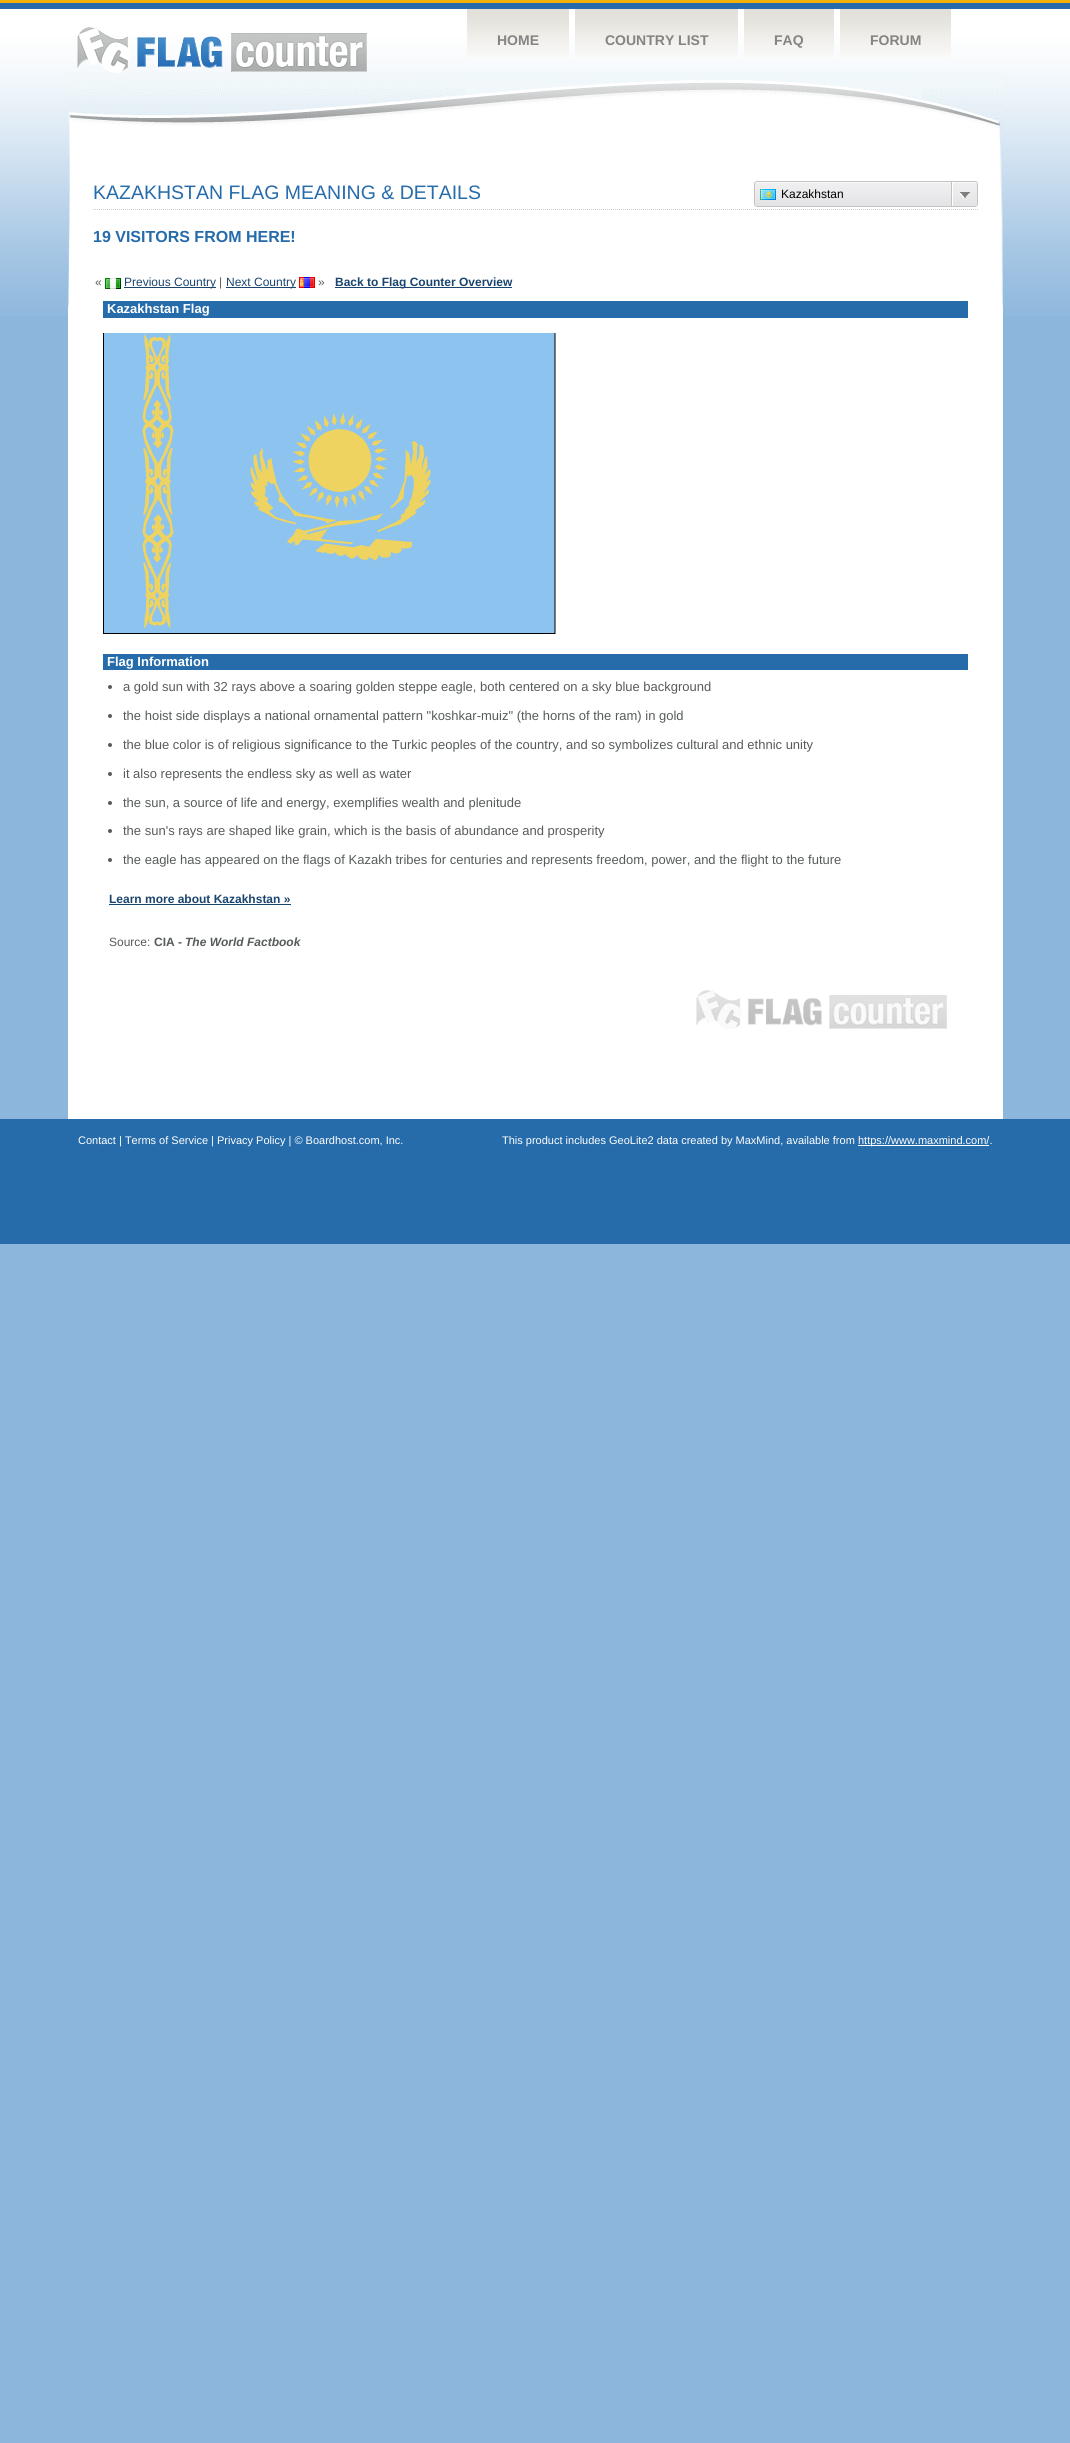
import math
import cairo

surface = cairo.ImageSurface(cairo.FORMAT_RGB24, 1070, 2443)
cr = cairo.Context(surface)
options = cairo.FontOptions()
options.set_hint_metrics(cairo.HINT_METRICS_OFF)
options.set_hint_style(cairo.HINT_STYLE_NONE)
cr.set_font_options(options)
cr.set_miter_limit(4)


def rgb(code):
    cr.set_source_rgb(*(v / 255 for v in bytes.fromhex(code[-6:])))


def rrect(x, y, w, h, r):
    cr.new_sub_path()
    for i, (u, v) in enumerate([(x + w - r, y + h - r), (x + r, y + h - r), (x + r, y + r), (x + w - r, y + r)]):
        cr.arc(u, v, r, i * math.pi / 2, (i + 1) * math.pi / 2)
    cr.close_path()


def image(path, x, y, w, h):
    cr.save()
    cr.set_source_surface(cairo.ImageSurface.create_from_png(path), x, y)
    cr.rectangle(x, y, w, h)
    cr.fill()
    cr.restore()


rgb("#8cb6dc")
cr.paint()
image("img/1.png", 0, 0, 1070, 316)
image("img/2.png", 77, 27, 290, 45)
image("img/3.png", 467, 9, 102, 49)
image("img/4.png", 575, 9, 163, 49)
image("img/5.png", 744, 9, 90, 49)
image("img/6.png", 840, 9, 111, 49)
rgb("#ffffff")
cr.rectangle(68, 309, 935, 810)
cr.fill()
image("img/7.png", 68, 72, 935, 237)
cr.new_path()
cr.move_to(93, 209.5)
cr.line_to(978, 209.5)
rgb("#cccccc")
cr.set_line_width(1)
cr.set_dash([1, 1])
cr.stroke()
rrect(754.5, 181.5, 223, 25, 2.5)
rgb("#c3c3c3")
cr.set_dash([])
cr.stroke()
image("img/8.png", 755, 182, 222, 24)
image("img/9.png", 760, 189, 16, 11)
rgb("#ffffff")
cr.rectangle(952, 182, 1, 24)
cr.fill()
rgb("#c3c3c3")
cr.rectangle(951, 182, 1, 24)
cr.fill()
image("img/10.png", 960, 192, 10, 6)
image("img/11.png", 105, 278, 16, 11)
rgb("#1a456e")
cr.rectangle(124, 287, 92, 1)
cr.fill()
cr.rectangle(226, 287, 70, 1)
cr.fill()
image("img/12.png", 299, 277, 16, 11)
cr.rectangle(335, 287, 177, 1)
cr.fill()
rgb("#266caa")
cr.rectangle(103, 301, 865, 17)
cr.fill()
image("img/13.png", 103, 333, 453, 301)
cr.rectangle(103, 654, 865, 16)
cr.fill()
rgb("#575b5c")
cr.arc(110, 687, 2, 0, 2 * math.pi)
cr.fill()
cr.arc(110, 716, 2, 0, 2 * math.pi)
cr.fill()
cr.arc(110, 745, 2, 0, 2 * math.pi)
cr.fill()
cr.arc(110, 774, 2, 0, 2 * math.pi)
cr.fill()
cr.arc(110, 803, 2, 0, 2 * math.pi)
cr.fill()
cr.arc(110, 831, 2, 0, 2 * math.pi)
cr.fill()
cr.arc(110, 860, 2, 0, 2 * math.pi)
cr.fill()
rgb("#1a456e")
cr.rectangle(109, 904, 182, 1)
cr.fill()
image("img/14.png", 696, 990, 251, 39)
rgb("#266baa")
cr.rectangle(0, 1119, 1070, 125)
cr.fill()
rgb("#ffffff")
cr.rectangle(858, 1145, 131, 1)
cr.fill()
cr.select_font_face("Liberation Sans", cairo.FONT_SLANT_NORMAL, cairo.FONT_WEIGHT_BOLD)
cr.set_font_size(14)
rgb("#868382")
for x, y, s in [
    (497, 45, "HOME"),
    (605, 45, "COUNTRY LIST"),
    (774, 45, "FAQ"),
    (870, 45, "FORUM"),
]:
    cr.move_to(x, y)
    cr.show_text(s)
cr.select_font_face("Liberation Sans")
cr.set_font_size(19.5)
rgb("#266baa")
cr.move_to(93, 199)
cr.show_text("KAZAKHSTAN FLAG MEANING & DETAILS")
cr.set_font_size(12)
rgb("#000000")
cr.move_to(781, 198)
cr.show_text("Kazakhstan")
cr.select_font_face("Liberation Sans", cairo.FONT_SLANT_NORMAL, cairo.FONT_WEIGHT_BOLD)
cr.set_font_size(16)
rgb("#266baa")
cr.move_to(93, 242)
cr.show_text("19 VISITORS FROM HERE!")
cr.select_font_face("Liberation Sans")
cr.set_font_size(12)
rgb("#575b5c")
cr.move_to(95, 286)
cr.show_text("«")
rgb("#1a456e")
cr.move_to(124, 286)
cr.show_text("Previous Country")
rgb("#575b5c")
cr.move_to(219, 286)
cr.show_text("|")
rgb("#1a456e")
cr.move_to(226, 286)
cr.show_text("Next Country")
rgb("#575b5c")
cr.move_to(318, 286)
cr.show_text("»")
cr.select_font_face("Liberation Sans", cairo.FONT_SLANT_NORMAL, cairo.FONT_WEIGHT_BOLD)
rgb("#1a456e")
cr.move_to(335, 286)
cr.show_text("Back to Flag Counter Overview")
cr.set_font_size(13)
rgb("#ffffff")
cr.move_to(107, 313)
cr.show_text("Kazakhstan Flag")
cr.move_to(107, 666)
cr.show_text("Flag Information")
cr.select_font_face("Liberation Sans")
rgb("#575b5c")
for x, y, s in [
    (123, 691, "a gold sun with 32 rays above a soaring golden steppe eagle, both centered on a sky blue background"),
    (123, 720, "the hoist side displays a national ornamental pattern \"koshkar-muiz\" (the horns of the ram) in gold"),
    (123, 749, "the blue color is of religious significance to the Turkic peoples of the country, and so symbolizes cultural and ethnic unity"),
    (123, 778, "it also represents the endless sky as well as water"),
    (123, 807, "the sun, a source of life and energy, exemplifies wealth and plenitude"),
    (123, 835, "the sun's rays are shaped like grain, which is the basis of abundance and prosperity"),
    (123, 864, "the eagle has appeared on the flags of Kazakh tribes for centuries and represents freedom, power, and the flight to the future"),
]:
    cr.move_to(x, y)
    cr.show_text(s)
cr.select_font_face("Liberation Sans", cairo.FONT_SLANT_NORMAL, cairo.FONT_WEIGHT_BOLD)
cr.set_font_size(12)
rgb("#1a456e")
cr.move_to(109, 903)
cr.show_text("Learn more about Kazakhstan »")
cr.select_font_face("Liberation Sans")
rgb("#575b5c")
cr.move_to(109, 946)
cr.show_text("Source:")
cr.select_font_face("Liberation Sans", cairo.FONT_SLANT_NORMAL, cairo.FONT_WEIGHT_BOLD)
cr.move_to(154, 946)
cr.show_text("CIA -")
cr.select_font_face("Liberation Sans", cairo.FONT_SLANT_ITALIC, cairo.FONT_WEIGHT_BOLD)
cr.move_to(185, 946)
cr.show_text("The World Factbook")
cr.select_font_face("Liberation Sans")
cr.set_font_size(11)
rgb("#ffffff")
for x, y, s in [
    (78, 1144, "Contact | Terms of Service | Privacy Policy | © Boardhost.com, Inc."),
    (502, 1144, "This product includes GeoLite2 data created by MaxMind, available from"),
    (858, 1144, "https://www.maxmind.com/."),
]:
    cr.move_to(x, y)
    cr.show_text(s)
surface.write_to_png("page.png")
